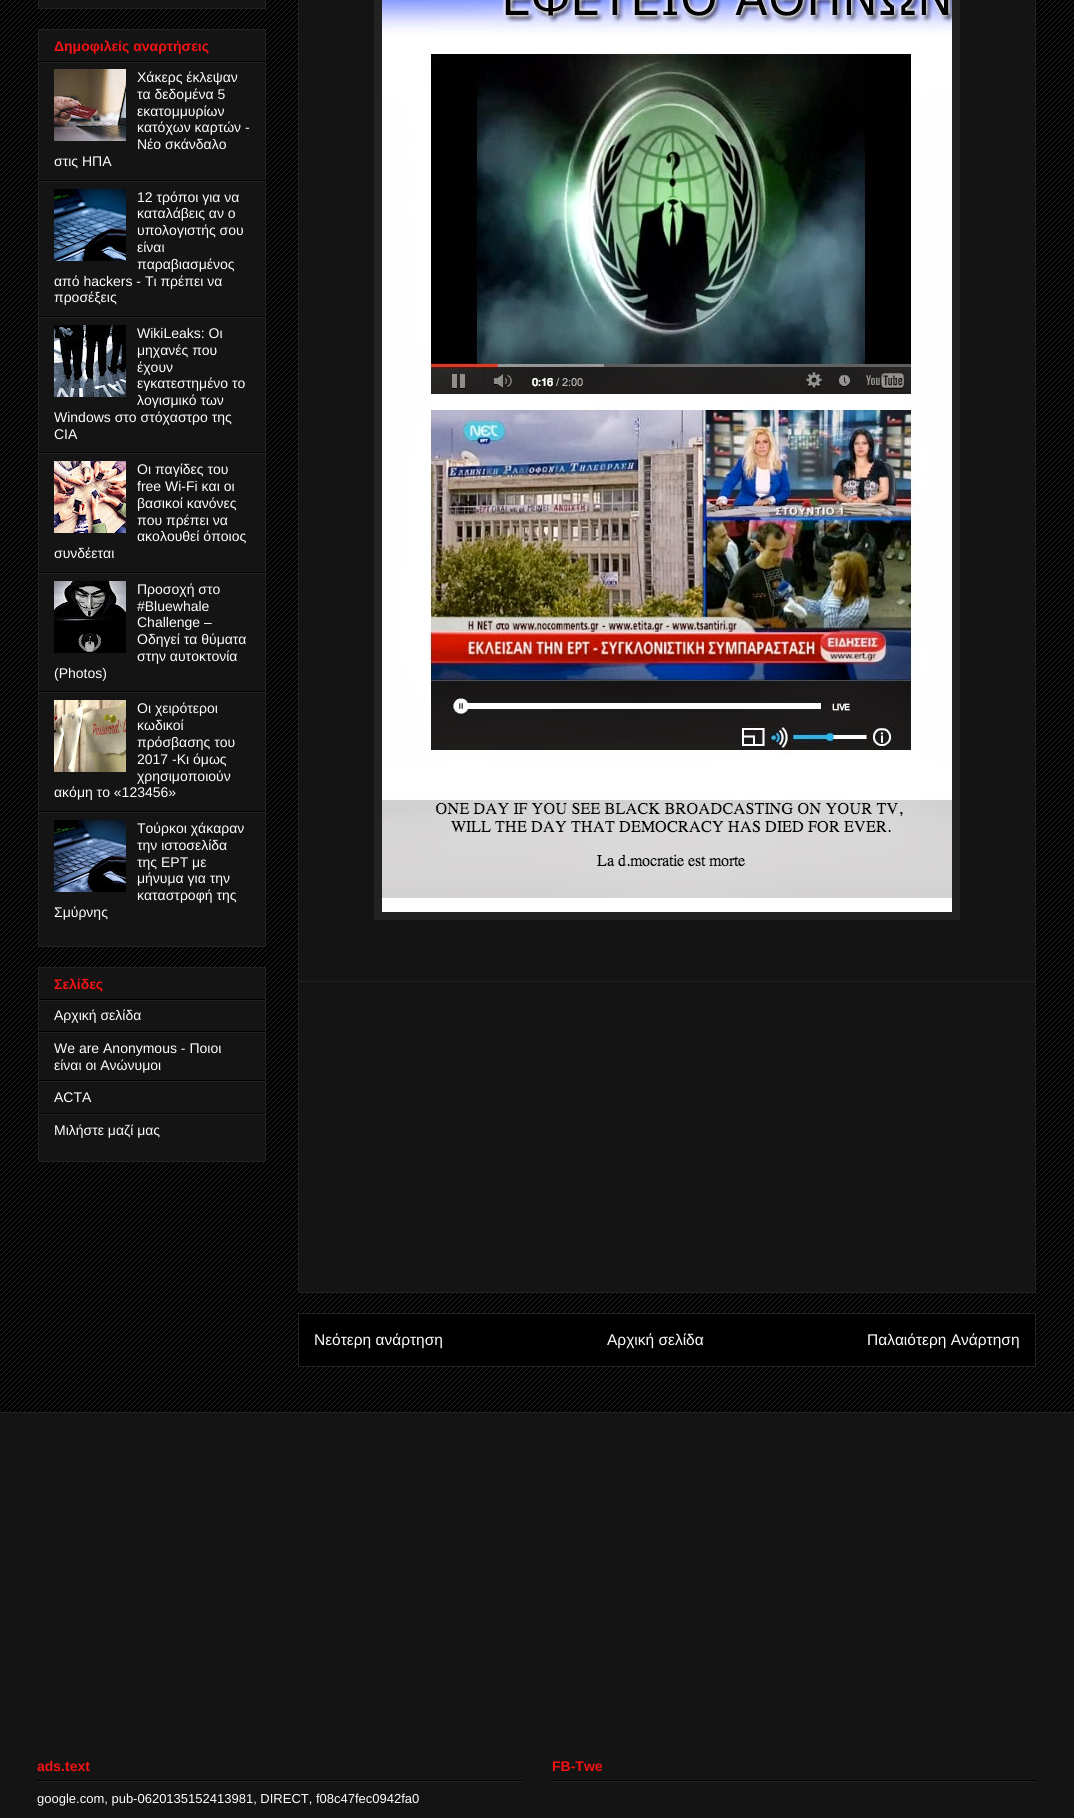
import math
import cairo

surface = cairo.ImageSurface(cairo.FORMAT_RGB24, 1074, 1818)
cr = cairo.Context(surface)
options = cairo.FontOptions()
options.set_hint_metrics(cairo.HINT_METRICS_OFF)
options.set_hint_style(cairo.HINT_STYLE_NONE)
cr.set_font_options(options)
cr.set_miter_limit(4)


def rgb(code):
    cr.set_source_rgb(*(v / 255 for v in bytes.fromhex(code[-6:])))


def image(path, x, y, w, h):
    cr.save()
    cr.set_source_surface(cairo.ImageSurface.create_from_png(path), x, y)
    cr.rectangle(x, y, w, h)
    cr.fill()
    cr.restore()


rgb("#000000")
cr.paint()
image("img/1.png", 0, 0, 1074, 1412)
rgb("#141414")
cr.rectangle(38.5, -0.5, 227, 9)
cr.fill_preserve()
rgb("#222222")
cr.set_line_width(1)
cr.stroke()
rgb("#141414")
cr.rectangle(38.5, 29.5, 227, 917)
cr.fill_preserve()
rgb("#222222")
cr.stroke()
for x, y, w, h, color in [
    (39, 61, 226, 1, "#000000"),
    (39, 62, 226, 1, "#222222"),
    (39, 180, 226, 1, "#000000"),
]:
    rgb(color)
    cr.rectangle(x, y, w, h)
    cr.fill()
image("img/2.png", 54, 69, 72, 72)
rgb("#222222")
cr.rectangle(39, 181, 226, 1)
cr.fill()
rgb("#000000")
cr.rectangle(39, 316, 226, 1)
cr.fill()
image("img/3.png", 54, 189, 72, 72)
rgb("#222222")
cr.rectangle(39, 317, 226, 1)
cr.fill()
rgb("#000000")
cr.rectangle(39, 452, 226, 1)
cr.fill()
image("img/4.png", 54, 325, 72, 72)
rgb("#222222")
cr.rectangle(39, 453, 226, 1)
cr.fill()
rgb("#000000")
cr.rectangle(39, 572, 226, 1)
cr.fill()
image("img/5.png", 54, 461, 72, 72)
rgb("#222222")
cr.rectangle(39, 573, 226, 1)
cr.fill()
rgb("#000000")
cr.rectangle(39, 691, 226, 1)
cr.fill()
image("img/6.png", 54, 581, 72, 72)
rgb("#222222")
cr.rectangle(39, 692, 226, 1)
cr.fill()
rgb("#000000")
cr.rectangle(39, 811, 226, 1)
cr.fill()
image("img/7.png", 54, 700, 72, 72)
rgb("#222222")
cr.rectangle(39, 812, 226, 1)
cr.fill()
image("img/8.png", 54, 820, 72, 72)
rgb("#141414")
cr.rectangle(38.5, 967.5, 227, 194)
cr.fill_preserve()
rgb("#222222")
cr.stroke()
for x, y, w, h, color in [
    (39, 999, 226, 1, "#000000"),
    (39, 1000, 226, 1, "#222222"),
    (39, 1031, 226, 1, "#000000"),
    (39, 1032, 226, 1, "#222222"),
    (39, 1080, 226, 1, "#000000"),
    (39, 1081, 226, 1, "#222222"),
    (39, 1113, 226, 1, "#000000"),
    (39, 1114, 226, 1, "#222222"),
]:
    rgb(color)
    cr.rectangle(x, y, w, h)
    cr.fill()
rgb("#141414")
cr.rectangle(298.5, -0.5, 737, 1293)
cr.fill_preserve()
rgb("#222222")
cr.stroke()
cr.rectangle(374, 0, 586, 920)
cr.fill()
image("img/9.png", 382, 0, 570, 912)
cr.rectangle(299, 981, 736, 1)
cr.fill()
rgb("#000000")
cr.rectangle(298.5, 1313.5, 737, 53)
cr.fill_preserve()
rgb("#222222")
cr.stroke()
for x, y, w, h, color in [
    (0, 1413, 1074, 405, "#141414"),
    (0, 1412, 1074, 1, "#222222"),
    (37, 1780, 485, 1, "#000000"),
    (37, 1781, 485, 1, "#222222"),
    (552, 1780, 485, 1, "#000000"),
    (552, 1781, 485, 1, "#222222"),
]:
    rgb(color)
    cr.rectangle(x, y, w, h)
    cr.fill()
cr.select_font_face("Liberation Sans", cairo.FONT_SLANT_NORMAL, cairo.FONT_WEIGHT_BOLD)
cr.set_font_size(14)
rgb("#f41212")
cr.move_to(54, 51)
cr.show_text("Δημοφιλείς αναρτήσεις")
cr.select_font_face("Liberation Sans")
rgb("#ffffff")
for x, y, s in [
    (137, 82, "Χάκερς έκλεψαν"),
    (137, 99, "τα δεδομένα 5"),
    (137, 116, "εκατομμυρίων"),
    (137, 132, "κατόχων καρτών -"),
    (137, 149, "Νέο σκάνδαλο"),
    (54, 166, "στις ΗΠΑ"),
    (137, 202, "12 τρόποι για να"),
    (137, 218, "καταλάβεις αν ο"),
    (137, 235, "υπολογιστής σου"),
    (137, 252, "είναι"),
    (137, 269, "παραβιασμένος"),
    (54, 286, "από hackers - Τι πρέπει να"),
    (54, 302, "προσέξεις"),
    (137, 338, "WikiLeaks: Οι"),
    (137, 355, "μηχανές που"),
    (137, 372, "έχουν"),
    (137, 388, "εγκατεστημένο το"),
    (137, 405, "λογισμικό των"),
    (54, 422, "Windows στο στόχαστρο της"),
    (54, 439, "CIA"),
    (137, 474, "Οι παγίδες του"),
    (137, 491, "free Wi-Fi και οι"),
    (137, 508, "βασικοί κανόνες"),
    (137, 525, "που πρέπει να"),
    (137, 541, "ακολουθεί όποιος"),
    (54, 558, "συνδέεται"),
    (137, 594, "Προσοχή στο"),
    (137, 611, "#Bluewhale"),
    (137, 627, "Challenge –"),
    (137, 644, "Οδηγεί τα θύματα"),
    (137, 661, "στην αυτοκτονία"),
    (54, 678, "(Photos)"),
    (137, 713, "Οι χειρότεροι"),
    (137, 730, "κωδικοί"),
    (137, 747, "πρόσβασης του"),
    (137, 764, "2017 -Κι όμως"),
    (137, 781, "χρησιμοποιούν"),
    (54, 797, "ακόμη το «123456»"),
    (137, 833, "Τούρκοι χάκαραν"),
    (137, 850, "την ιστοσελίδα"),
    (137, 867, "της ΕΡΤ με"),
    (137, 883, "μήνυμα για την"),
    (137, 900, "καταστροφή της"),
    (54, 917, "Σμύρνης"),
]:
    cr.move_to(x, y)
    cr.show_text(s)
cr.select_font_face("Liberation Sans", cairo.FONT_SLANT_NORMAL, cairo.FONT_WEIGHT_BOLD)
rgb("#f41212")
cr.move_to(54, 989)
cr.show_text("Σελίδες")
cr.select_font_face("Liberation Sans")
rgb("#ffffff")
for x, y, s in [
    (54, 1020, "Αρχική σελίδα"),
    (54, 1053, "We are Anonymous - Ποιοι"),
    (54, 1070, "είναι οι Ανώνυμοι"),
    (54, 1102, "ACTA"),
    (54, 1135, "Μιλήστε μαζί μας"),
]:
    cr.move_to(x, y)
    cr.show_text(s)
cr.set_font_size(15.5)
for x, y, s in [
    (314, 1345, "Νεότερη ανάρτηση"),
    (607, 1345, "Αρχική σελίδα"),
    (867, 1345, "Παλαιότερη Ανάρτηση"),
]:
    cr.move_to(x, y)
    cr.show_text(s)
cr.select_font_face("Liberation Sans", cairo.FONT_SLANT_NORMAL, cairo.FONT_WEIGHT_BOLD)
cr.set_font_size(14)
rgb("#f41212")
cr.move_to(37, 1771)
cr.show_text("ads.text")
cr.select_font_face("Liberation Sans")
cr.set_font_size(13)
rgb("#ffffff")
cr.move_to(37, 1803)
cr.show_text("google.com, pub-0620135152413981, DIRECT, f08c47fec0942fa0")
cr.select_font_face("Liberation Sans", cairo.FONT_SLANT_NORMAL, cairo.FONT_WEIGHT_BOLD)
cr.set_font_size(14)
rgb("#f41212")
cr.move_to(552, 1771)
cr.show_text("FB-Twe")
surface.write_to_png("page.png")
